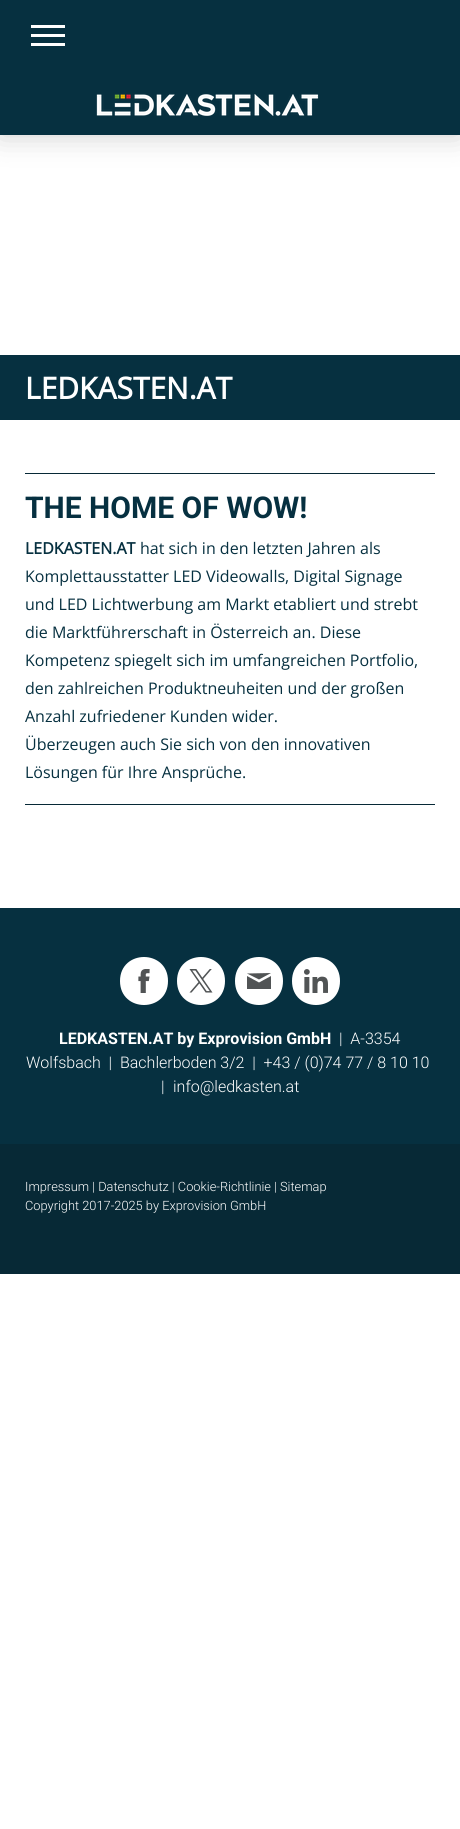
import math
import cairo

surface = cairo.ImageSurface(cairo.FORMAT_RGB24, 460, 1829)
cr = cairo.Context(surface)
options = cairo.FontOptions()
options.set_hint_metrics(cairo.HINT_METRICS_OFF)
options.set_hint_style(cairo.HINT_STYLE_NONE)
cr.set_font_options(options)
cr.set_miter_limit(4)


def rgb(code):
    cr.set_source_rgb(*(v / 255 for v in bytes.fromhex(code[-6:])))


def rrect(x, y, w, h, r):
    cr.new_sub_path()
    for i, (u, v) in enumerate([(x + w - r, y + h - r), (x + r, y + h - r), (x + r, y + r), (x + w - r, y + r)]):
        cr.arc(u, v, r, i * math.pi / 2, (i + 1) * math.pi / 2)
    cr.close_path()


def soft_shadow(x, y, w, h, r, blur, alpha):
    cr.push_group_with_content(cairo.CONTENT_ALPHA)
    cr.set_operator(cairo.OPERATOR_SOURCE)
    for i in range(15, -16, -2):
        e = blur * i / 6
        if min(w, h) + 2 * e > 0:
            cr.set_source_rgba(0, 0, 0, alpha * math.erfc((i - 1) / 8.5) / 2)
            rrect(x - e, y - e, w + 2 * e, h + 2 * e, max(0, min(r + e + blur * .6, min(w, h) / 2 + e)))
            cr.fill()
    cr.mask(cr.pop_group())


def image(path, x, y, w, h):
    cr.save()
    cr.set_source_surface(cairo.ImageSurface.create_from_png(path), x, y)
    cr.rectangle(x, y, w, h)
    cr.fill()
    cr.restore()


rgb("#ffffff")
cr.paint()
rgb("#000000")
soft_shadow(0, 75, 460, 60, 0, 15, 0.2)
rgb("#063040")
cr.rectangle(0, 0, 460, 135)
cr.fill()
image("img/1.png", 96, 94, 223, 22)
for x, y, w, h, color in [
    (31, 34, 34, 3, "#ffffff"),
    (31, 25, 34, 3, "#ffffff"),
    (31, 43, 34, 3, "#ffffff"),
    (0, 355, 460, 65, "#063040"),
    (25, 473, 410, 1, "#072936"),
    (25, 804, 410, 1, "#072936"),
    (0, 908, 460, 236, "#063040"),
]:
    rgb(color)
    cr.rectangle(x, y, w, h)
    cr.fill()
rgb("#ffffff")
cr.new_path()
cr.move_to(120, 981)
cr.curve_to(120, 1013, 168, 1013, 168, 981)
cr.curve_to(168, 949, 120, 949, 120, 981)
cr.close_path()
cr.fill()
image("img/2.png", 138, 969, 12, 24)
cr.new_path()
cr.move_to(177, 981)
cr.curve_to(177, 1013, 225, 1013, 225, 981)
cr.curve_to(225, 949, 177, 949, 177, 981)
cr.close_path()
cr.fill()
image("img/3.png", 189, 969, 24, 24)
cr.new_path()
cr.move_to(235, 981)
cr.curve_to(235, 1013, 283, 1013, 283, 981)
cr.curve_to(283, 949, 235, 949, 235, 981)
cr.close_path()
cr.fill()
rgb("#515455")
cr.new_path()
cr.move_to(271, 989)
cr.line_to(247, 989)
cr.line_to(247, 976)
cr.line_to(259, 982.5)
cr.line_to(271, 976)
cr.close_path()
cr.move_to(271, 973)
cr.line_to(247, 973.5)
cr.line_to(259, 979.5)
cr.close_path()
cr.fill()
rgb("#ffffff")
cr.new_path()
cr.move_to(292, 981)
cr.curve_to(292, 1013, 340, 1013, 340, 981)
cr.curve_to(340, 949, 292, 949, 292, 981)
cr.close_path()
cr.fill()
image("img/4.png", 304, 969, 24, 24)
rgb("#072936")
cr.rectangle(0, 1144, 460, 130)
cr.fill()
cr.select_font_face("Open Sans", cairo.FONT_SLANT_NORMAL, cairo.FONT_WEIGHT_BOLD)
cr.set_font_size(30)
rgb("#ffffff")
cr.move_to(25, 399)
cr.show_text("LEDKASTEN.AT")
cr.select_font_face("Roboto", cairo.FONT_SLANT_NORMAL, cairo.FONT_WEIGHT_BOLD)
rgb("#063040")
cr.move_to(25, 518)
cr.show_text("THE HOME OF WOW!")
cr.select_font_face("Open Sans", cairo.FONT_SLANT_NORMAL, cairo.FONT_WEIGHT_BOLD)
cr.set_font_size(16)
cr.move_to(25, 554)
cr.show_text("LEDKASTEN.AT")
cr.select_font_face("Open Sans")
for x, y, s in [
    (140, 554, "hat sich in den letzten Jahren als"),
    (25, 582, "Komplettausstatter LED Videowalls, Digital Signage"),
    (25, 610, "und LED Lichtwerbung am Markt etabliert und strebt"),
    (25, 638, "die Marktführerschaft in Österreich an. Diese"),
    (25, 666, "Kompetenz spiegelt sich im umfangreichen Portfolio,"),
    (25, 694, "den zahlreichen Produktneuheiten und der großen"),
    (25, 722, "Anzahl zufriedener Kunden wider."),
    (25, 750, "Überzeugen auch Sie sich von den innovativen"),
    (25, 778, "Lösungen für Ihre Ansprüche."),
]:
    cr.move_to(x, y)
    cr.show_text(s)
cr.select_font_face("Roboto", cairo.FONT_SLANT_NORMAL, cairo.FONT_WEIGHT_BOLD)
rgb("#ffffff")
cr.move_to(59, 1044)
cr.show_text("LEDKASTEN.AT by Exprovision GmbH")
cr.select_font_face("Roboto Light")
for x, y, s in [
    (339, 1044, "|  A-3354"),
    (26, 1068, "Wolfsbach  |  Bachlerboden 3/2  |  +43 / (0)74 77 / 8 10 10"),
    (161, 1092, "|"),
    (173, 1092, "info@ledkasten.at"),
]:
    cr.move_to(x, y)
    cr.show_text(s)
cr.set_font_size(12.8)
cr.move_to(25, 1191)
cr.show_text("Impressum | Datenschutz | Cookie-Richtlinie | Sitemap")
cr.move_to(25, 1210)
cr.show_text("Copyright 2017-2025 by Exprovision GmbH")
surface.write_to_png("page.png")
